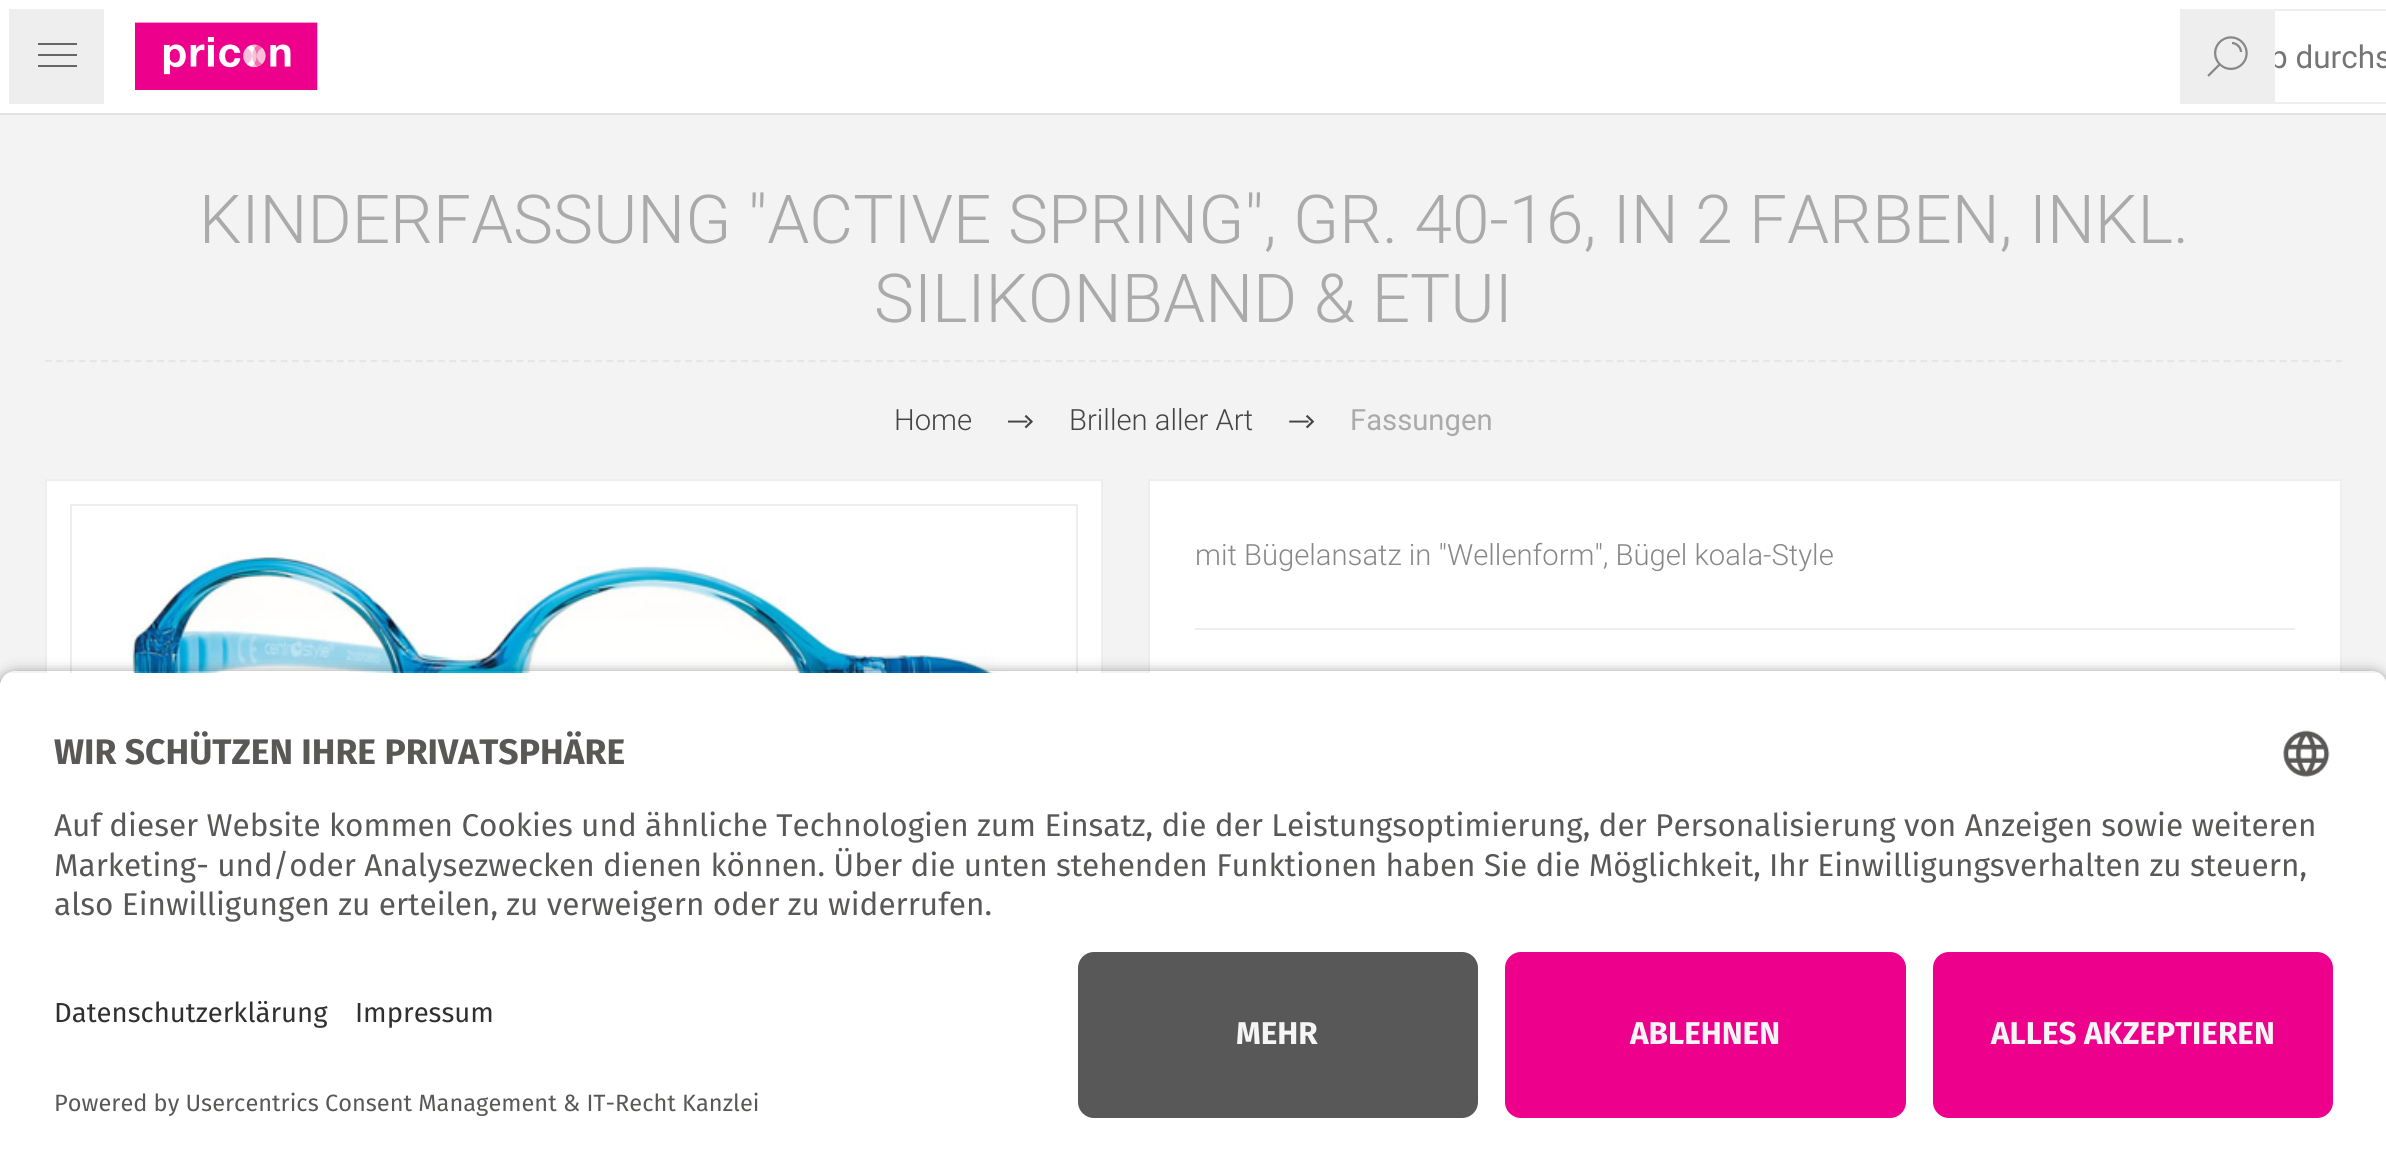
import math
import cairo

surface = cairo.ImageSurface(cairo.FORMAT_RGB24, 2386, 1171)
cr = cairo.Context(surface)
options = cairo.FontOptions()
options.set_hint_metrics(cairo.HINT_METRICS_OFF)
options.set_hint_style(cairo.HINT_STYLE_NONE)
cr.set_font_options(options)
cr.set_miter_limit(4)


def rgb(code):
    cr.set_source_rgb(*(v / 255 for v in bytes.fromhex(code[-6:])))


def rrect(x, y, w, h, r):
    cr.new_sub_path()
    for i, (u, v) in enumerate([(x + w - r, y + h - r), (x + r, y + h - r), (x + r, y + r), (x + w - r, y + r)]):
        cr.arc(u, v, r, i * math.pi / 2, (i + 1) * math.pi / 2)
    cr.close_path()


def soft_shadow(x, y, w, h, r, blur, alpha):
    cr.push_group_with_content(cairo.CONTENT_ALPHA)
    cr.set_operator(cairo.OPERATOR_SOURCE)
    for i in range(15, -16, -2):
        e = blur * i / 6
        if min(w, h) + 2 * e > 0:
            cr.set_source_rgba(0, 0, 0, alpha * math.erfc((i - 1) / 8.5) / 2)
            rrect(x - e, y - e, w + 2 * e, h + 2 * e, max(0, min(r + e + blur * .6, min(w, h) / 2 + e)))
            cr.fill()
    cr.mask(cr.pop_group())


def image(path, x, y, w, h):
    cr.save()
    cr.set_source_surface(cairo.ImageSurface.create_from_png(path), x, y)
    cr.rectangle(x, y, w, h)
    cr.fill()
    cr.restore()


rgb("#f3f3f3")
cr.paint()
rgb("#eeeeee")
cr.rectangle(4.5, 4.5, 104, 104)
cr.fill_preserve()
rgb("#ffffff")
cr.set_line_width(9)
cr.stroke()
for x, y, w, h, color in [
    (38, 43, 39, 2, "#666666"),
    (38, 54, 39, 2, "#666666"),
    (38, 65, 39, 2, "#666666"),
    (0, 113, 2386, 2, "#e3e3e3"),
    (113, 0, 2273, 113, "#ffffff"),
]:
    rgb(color)
    cr.rectangle(x, y, w, h)
    cr.fill()
image("img/1.png", 135, 22, 183, 68)
cr.rectangle(2181, 10, 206, 93)
rgb("#eeeeee")
cr.set_line_width(2)
cr.stroke()
cr.new_path()
cr.move_to(45, 361)
cr.line_to(2342, 361)
rgb("#e6e6e6")
cr.set_line_width(2.2)
cr.set_dash([6.75, 4.48])
cr.stroke()
image("img/3.png", 1008, 414, 25, 15)
image("img/4.png", 1289, 414, 26, 15)
rgb("#ffffff")
cr.rectangle(47, 481, 1054, 192)
cr.fill()
cr.rectangle(46, 480, 1056, 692)
rgb("#eeeeee")
cr.set_line_width(2)
cr.set_dash([])
cr.stroke()
cr.rectangle(71, 505, 1006, 399)
cr.stroke()
image("img/5.png", 131, 551, 877, 122)
rgb("#ffffff")
cr.rectangle(1150, 481, 1190, 192)
cr.fill()
cr.rectangle(1149, 480, 1192, 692)
rgb("#eeeeee")
cr.stroke()
cr.rectangle(1195, 628, 1100, 2)
cr.fill()
cr.save()
cr.set_fill_rule(cairo.FILL_RULE_EVEN_ODD)
cr.new_path()
cr.move_to(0, 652)
cr.line_to(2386, 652)
cr.line_to(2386, 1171)
cr.line_to(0, 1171)
cr.close_path()
cr.move_to(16, 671)
cr.line_to(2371, 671)
cr.curve_to(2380, 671, 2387, 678, 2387, 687)
cr.line_to(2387, 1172)
cr.line_to(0, 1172)
cr.line_to(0, 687)
cr.curve_to(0, 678, 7, 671, 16, 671)
cr.close_path()
cr.clip()
rgb("#000000")
soft_shadow(0, 677, 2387, 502, 16, 8, 0.8)
cr.restore()
cr.save()
cr.new_path()
cr.move_to(16, 671)
cr.line_to(2371, 671)
cr.curve_to(2380, 671, 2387, 678, 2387, 687)
cr.line_to(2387, 934)
cr.line_to(0, 934)
cr.line_to(0, 687)
cr.curve_to(0, 678, 7, 671, 16, 671)
cr.close_path()
cr.clip()
rgb("#ffffff")
cr.rectangle(0, 673, 2386, 261)
cr.fill()
cr.restore()
image("img/6.png", 2283, 730, 47, 47)
rgb("#ffffff")
cr.rectangle(0, 934, 2386, 237)
cr.fill()
rgb("#585858")
rrect(1078, 952, 400, 166, 16)
cr.fill()
rgb("#ec008c")
rrect(1505, 952, 401, 166, 16)
cr.fill()
rrect(1933, 952, 400, 166, 16)
cr.fill()
cr.select_font_face("Roboto")
cr.set_font_size(31.5)
rgb("#757575")
cr.move_to(2270, 68)
cr.show_text("p durchs")
rgb("#eeeeee")
cr.rectangle(2182, 11, 93, 91)
cr.fill()
image("img/2.png", 2207, 36, 41, 41)
cr.select_font_face("Roboto Light")
cr.set_font_size(67.5)
rgb("#aaaaaa")
cr.move_to(199, 243)
cr.show_text("KINDERFASSUNG \"ACTIVE SPRING\", GR. 40-16, IN 2 FARBEN, INKL.")
cr.move_to(874, 322)
cr.show_text("SILIKONBAND & ETUI")
cr.set_font_size(29.25)
rgb("#444444")
cr.move_to(894, 430)
cr.show_text("Home")
cr.move_to(1069, 430)
cr.show_text("Brillen aller Art")
cr.select_font_face("Roboto")
rgb("#aaaaaa")
cr.move_to(1350, 430)
cr.show_text("Fassungen")
cr.select_font_face("Roboto Light")
rgb("#888888")
cr.move_to(1195, 565)
cr.show_text("mit Bügelansatz in \"Wellenform\", Bügel koala-Style")
cr.select_font_face("Fira Sans", cairo.FONT_SLANT_NORMAL, cairo.FONT_WEIGHT_BOLD)
cr.set_font_size(35.5)
rgb("#595857")
cr.move_to(54, 764)
cr.show_text("WIR SCHÜTZEN IHRE PRIVATSPHÄRE")
cr.select_font_face("Fira Sans")
cr.set_font_size(31.5)
for x, y, s in [
    (54, 836, "Auf dieser Website kommen Cookies und ähnliche Technologien zum Einsatz, die der Leistungsoptimierung, der Personalisierung von Anzeigen sowie weiteren"),
    (54, 876, "Marketing- und/oder Analysezwecken dienen können. Über die unten stehenden Funktionen haben Sie die Möglichkeit, Ihr Einwilligungsverhalten zu steuern,"),
    (54, 915, "also Einwilligungen zu erteilen, zu verweigern oder zu widerrufen."),
]:
    cr.move_to(x, y)
    cr.show_text(s)
cr.set_font_size(27.5)
rgb("#303030")
cr.move_to(54, 1022)
cr.show_text("Datenschutzerklärung")
cr.move_to(355, 1022)
cr.show_text("Impressum")
cr.set_font_size(23.6)
rgb("#595857")
cr.move_to(54, 1111)
cr.show_text("Powered by Usercentrics Consent Management & IT-Recht Kanzlei")
cr.select_font_face("Fira Sans", cairo.FONT_SLANT_NORMAL, cairo.FONT_WEIGHT_BOLD)
cr.set_font_size(31.5)
rgb("#f5f5f5")
for x, y, s in [
    (1236, 1044, "MEHR"),
    (1630, 1044, "ABLEHNEN"),
    (1991, 1044, "ALLES AKZEPTIEREN"),
]:
    cr.move_to(x, y)
    cr.show_text(s)
surface.write_to_png("page.png")
